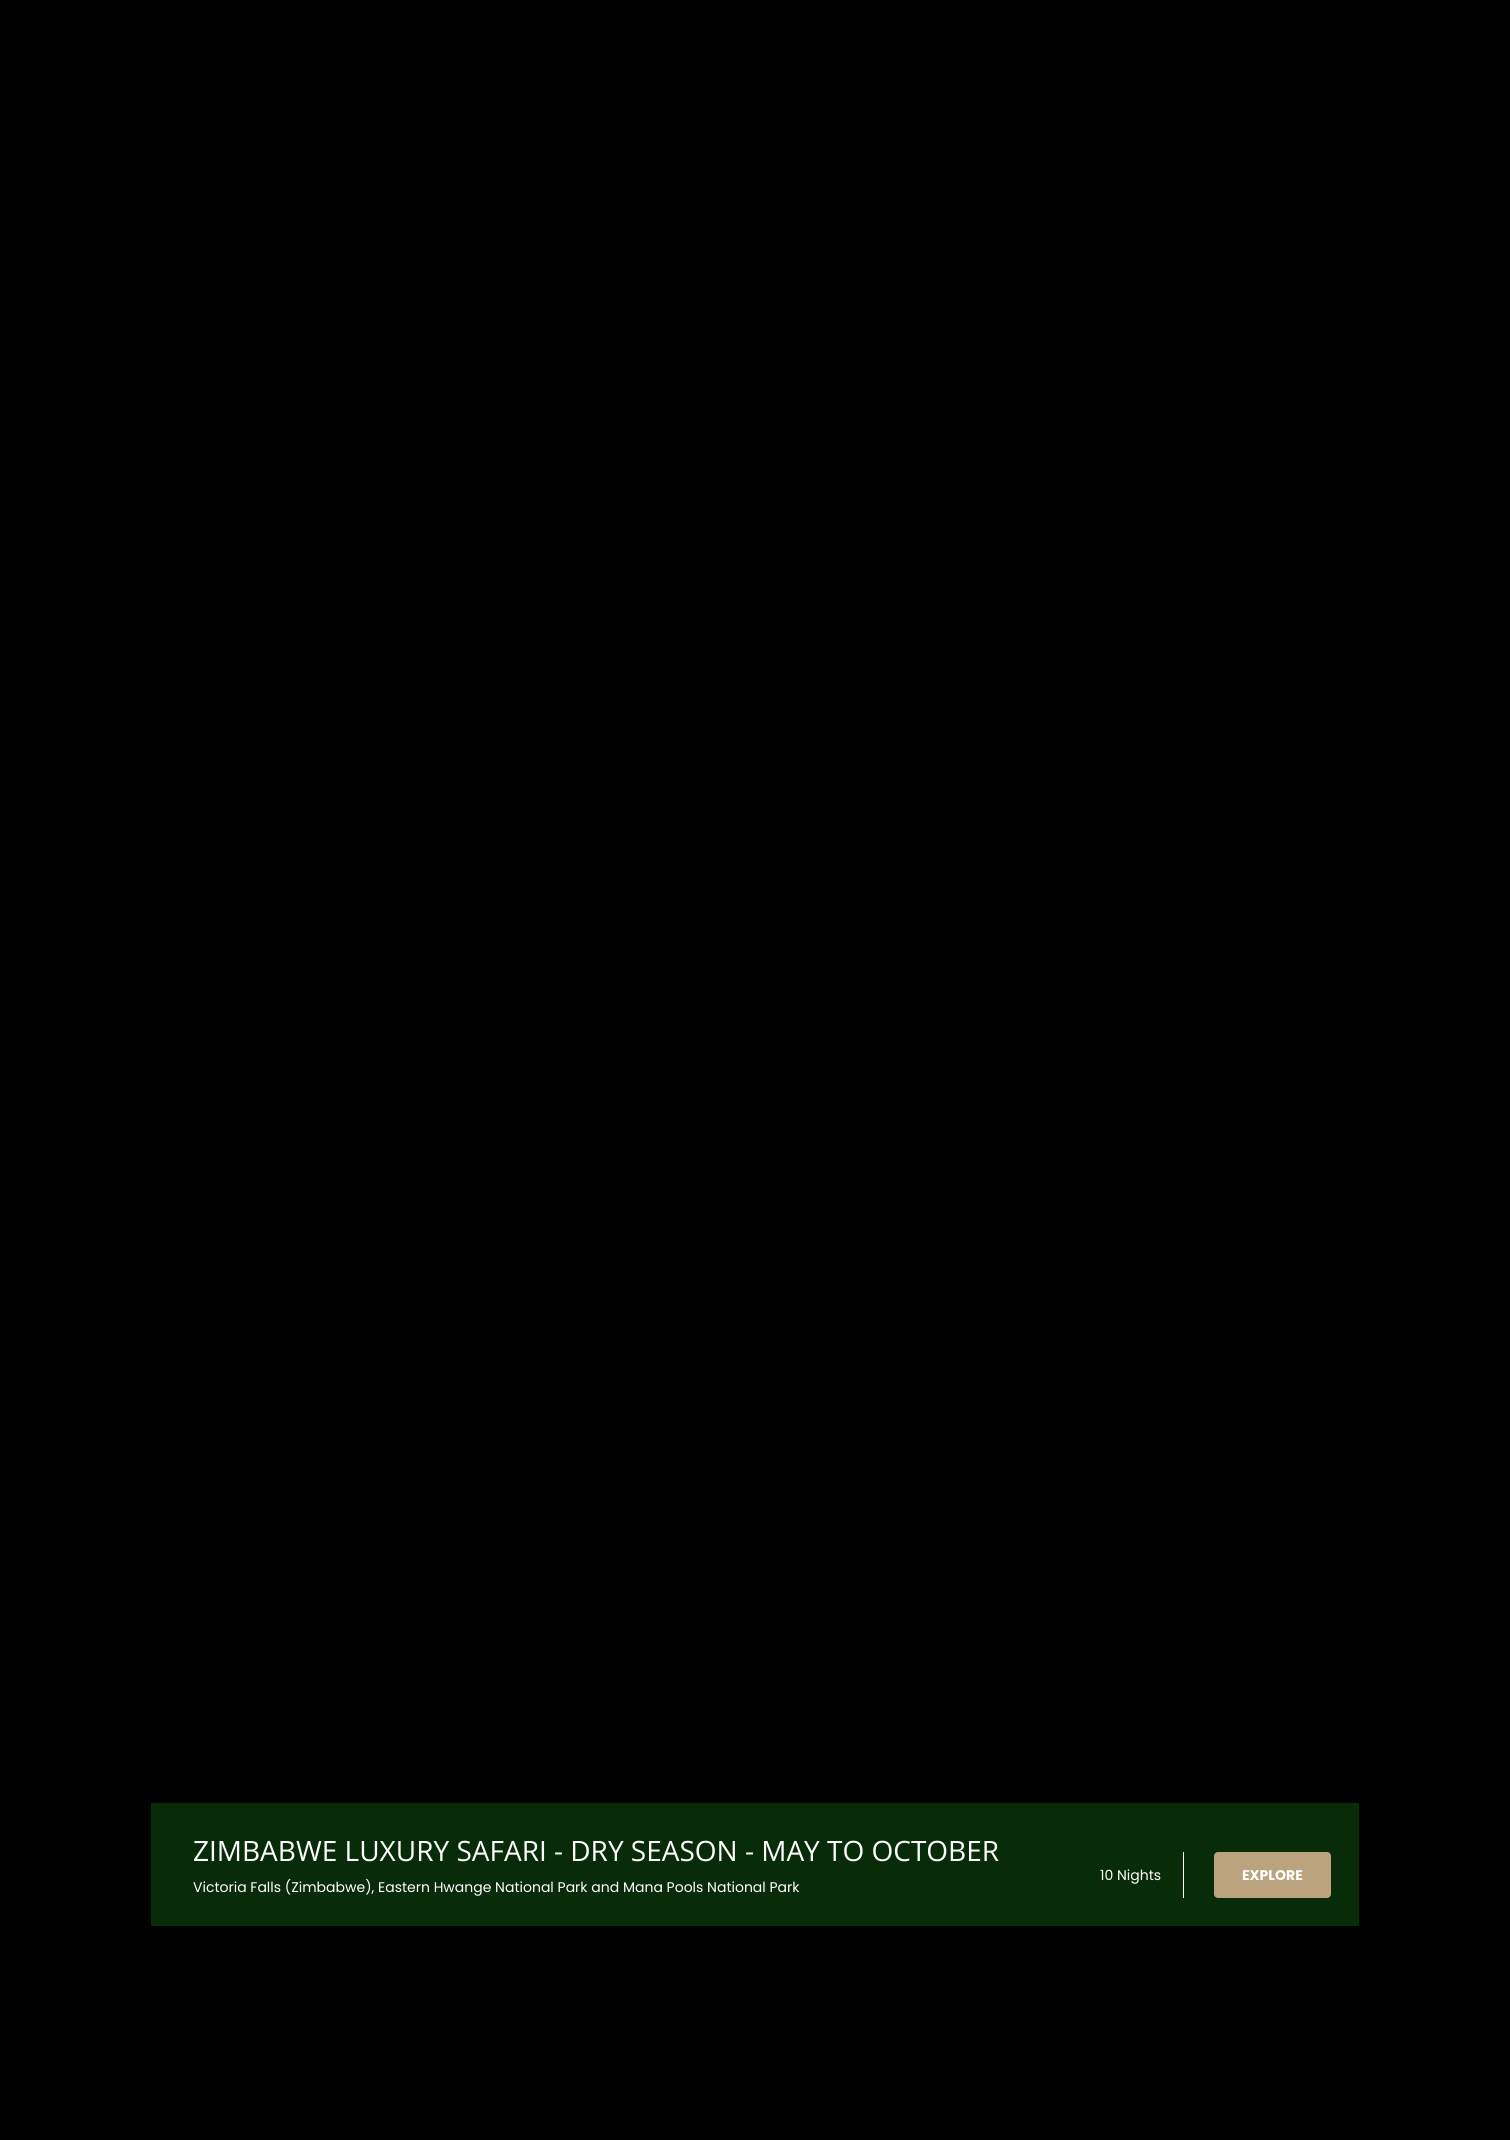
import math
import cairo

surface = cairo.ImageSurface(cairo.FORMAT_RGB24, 1510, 2140)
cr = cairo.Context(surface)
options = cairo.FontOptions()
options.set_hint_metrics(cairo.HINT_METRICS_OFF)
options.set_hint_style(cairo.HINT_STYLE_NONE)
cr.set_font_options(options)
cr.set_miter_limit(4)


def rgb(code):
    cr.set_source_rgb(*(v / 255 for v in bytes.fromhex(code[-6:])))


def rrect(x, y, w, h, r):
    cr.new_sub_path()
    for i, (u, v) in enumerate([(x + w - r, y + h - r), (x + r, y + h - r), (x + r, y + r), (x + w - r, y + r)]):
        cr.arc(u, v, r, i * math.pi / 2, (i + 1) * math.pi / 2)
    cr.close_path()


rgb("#000000")
cr.paint()
rgb("#082b08")
cr.rectangle(151, 1803, 1208, 123)
cr.fill()
rgb("#ffffff")
cr.rectangle(1183, 1852, 1, 46)
cr.fill()
rgb("#baa37e")
rrect(1214, 1852, 117, 46, 4)
cr.fill()
cr.select_font_face("Open Sans")
cr.set_font_size(28)
rgb("#ffffff")
cr.move_to(193, 1861)
cr.show_text("ZIMBABWE LUXURY SAFARI - DRY SEASON - MAY TO OCTOBER")
cr.select_font_face("Poppins")
cr.set_font_size(14)
cr.move_to(1100, 1880)
cr.show_text("10 Nights")
cr.select_font_face("Poppins", cairo.FONT_SLANT_NORMAL, cairo.FONT_WEIGHT_BOLD)
cr.move_to(1242, 1880)
cr.show_text("EXPLORE")
cr.select_font_face("Poppins")
cr.move_to(193, 1892)
cr.show_text("Victoria Falls (Zimbabwe), Eastern Hwange National Park and Mana Pools National Park")
surface.write_to_png("page.png")
